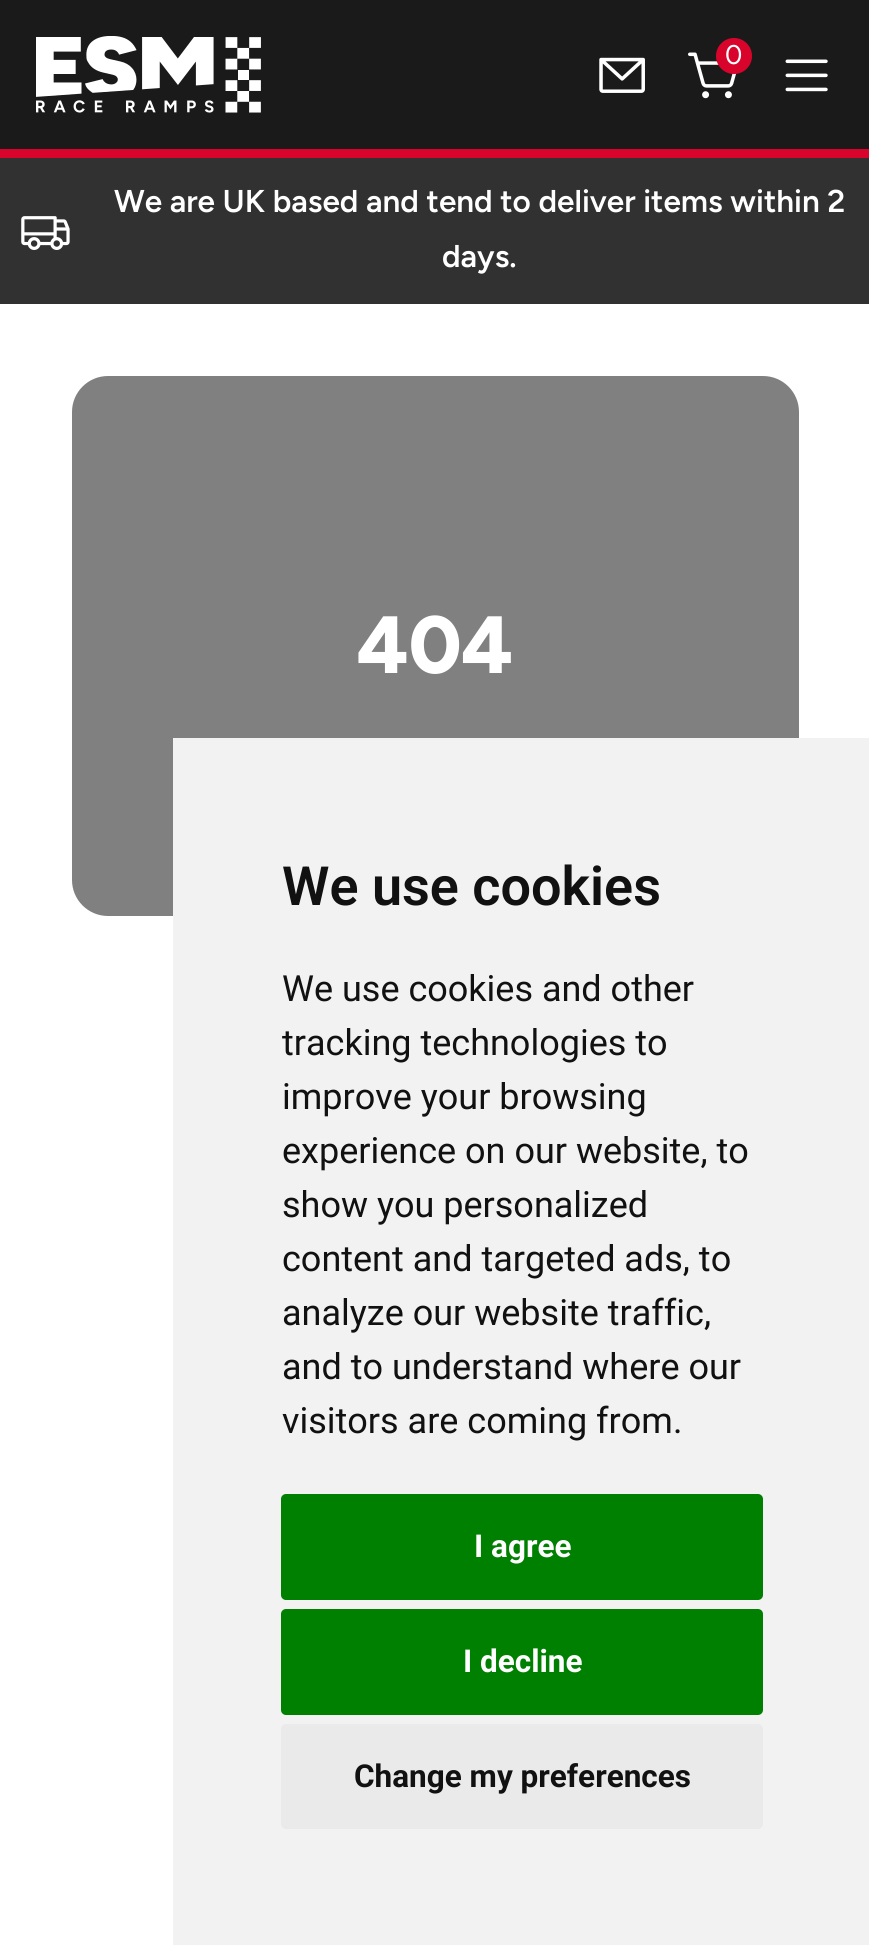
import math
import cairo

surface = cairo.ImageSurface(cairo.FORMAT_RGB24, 869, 1945)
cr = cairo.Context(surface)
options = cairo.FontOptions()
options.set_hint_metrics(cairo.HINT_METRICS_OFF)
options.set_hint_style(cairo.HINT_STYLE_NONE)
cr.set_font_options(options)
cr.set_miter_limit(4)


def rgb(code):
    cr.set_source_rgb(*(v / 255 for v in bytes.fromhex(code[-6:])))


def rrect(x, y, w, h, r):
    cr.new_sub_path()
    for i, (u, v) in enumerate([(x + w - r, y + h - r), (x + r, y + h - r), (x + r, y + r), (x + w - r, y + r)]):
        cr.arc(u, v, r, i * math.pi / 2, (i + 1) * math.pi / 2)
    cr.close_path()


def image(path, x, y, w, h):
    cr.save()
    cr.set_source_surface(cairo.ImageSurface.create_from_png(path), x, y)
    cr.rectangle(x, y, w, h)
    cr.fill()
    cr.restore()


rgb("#ffffff")
cr.paint()
rgb("#1a1a1a")
cr.rectangle(0, 0, 869, 149)
cr.fill()
rgb("#d9042b")
cr.rectangle(0, 149, 869, 9)
cr.fill()
image("img/1.png", 36, 36, 225, 77)
image("img/2.png", 688, 52, 49, 47)
cr.arc(734, 56, 18, 0, 2 * math.pi)
cr.fill()
image("img/3.png", 599, 57, 46, 36)
image("img/4.png", 785, 59, 43, 33)
rgb("#313131")
cr.rectangle(0, 158, 869, 146)
cr.fill()
image("img/5.png", 21, 216, 49, 34)
rgb("#808080")
rrect(72, 376, 727, 540, 36)
cr.fill()
rgb("#f2f2f2")
cr.rectangle(173, 738, 696, 1207)
cr.fill()
rgb("#008000")
rrect(281, 1494, 482, 106, 5)
cr.fill()
rrect(281, 1609, 482, 106, 5)
cr.fill()
rgb("#eaeaea")
rrect(281, 1724, 482, 105, 5)
cr.fill()
cr.select_font_face("Figtree")
cr.set_font_size(27)
rgb("#ffffff")
cr.move_to(725, 64)
cr.show_text("0")
cr.select_font_face("Figtree SemiBold")
cr.set_font_size(31.5)
cr.move_to(114, 212)
cr.show_text("We are UK based and tend to deliver items within 2")
cr.move_to(442, 267)
cr.show_text("days.")
cr.select_font_face("Figtree ExtraBold")
cr.set_font_size(81)
cr.move_to(357, 673)
cr.show_text("404")
cr.select_font_face("Roboto SemiBold")
cr.set_font_size(54)
rgb("#111111")
cr.move_to(282, 905)
cr.show_text("We use cookies")
cr.select_font_face("Roboto")
cr.set_font_size(36)
for x, y, s in [
    (282, 1001, "We use cookies and other"),
    (282, 1055, "tracking technologies to"),
    (282, 1109, "improve your browsing"),
    (282, 1163, "experience on our website, to"),
    (282, 1217, "show you personalized"),
    (282, 1271, "content and targeted ads, to"),
    (282, 1325, "analyze our website traffic,"),
    (282, 1379, "and to understand where our"),
    (282, 1433, "visitors are coming from."),
]:
    cr.move_to(x, y)
    cr.show_text(s)
cr.select_font_face("Roboto", cairo.FONT_SLANT_NORMAL, cairo.FONT_WEIGHT_BOLD)
cr.set_font_size(31.5)
rgb("#ffffff")
cr.move_to(474, 1557)
cr.show_text("I agree")
cr.move_to(463, 1672)
cr.show_text("I decline")
rgb("#111111")
cr.move_to(354, 1787)
cr.show_text("Change my preferences")
surface.write_to_png("page.png")
